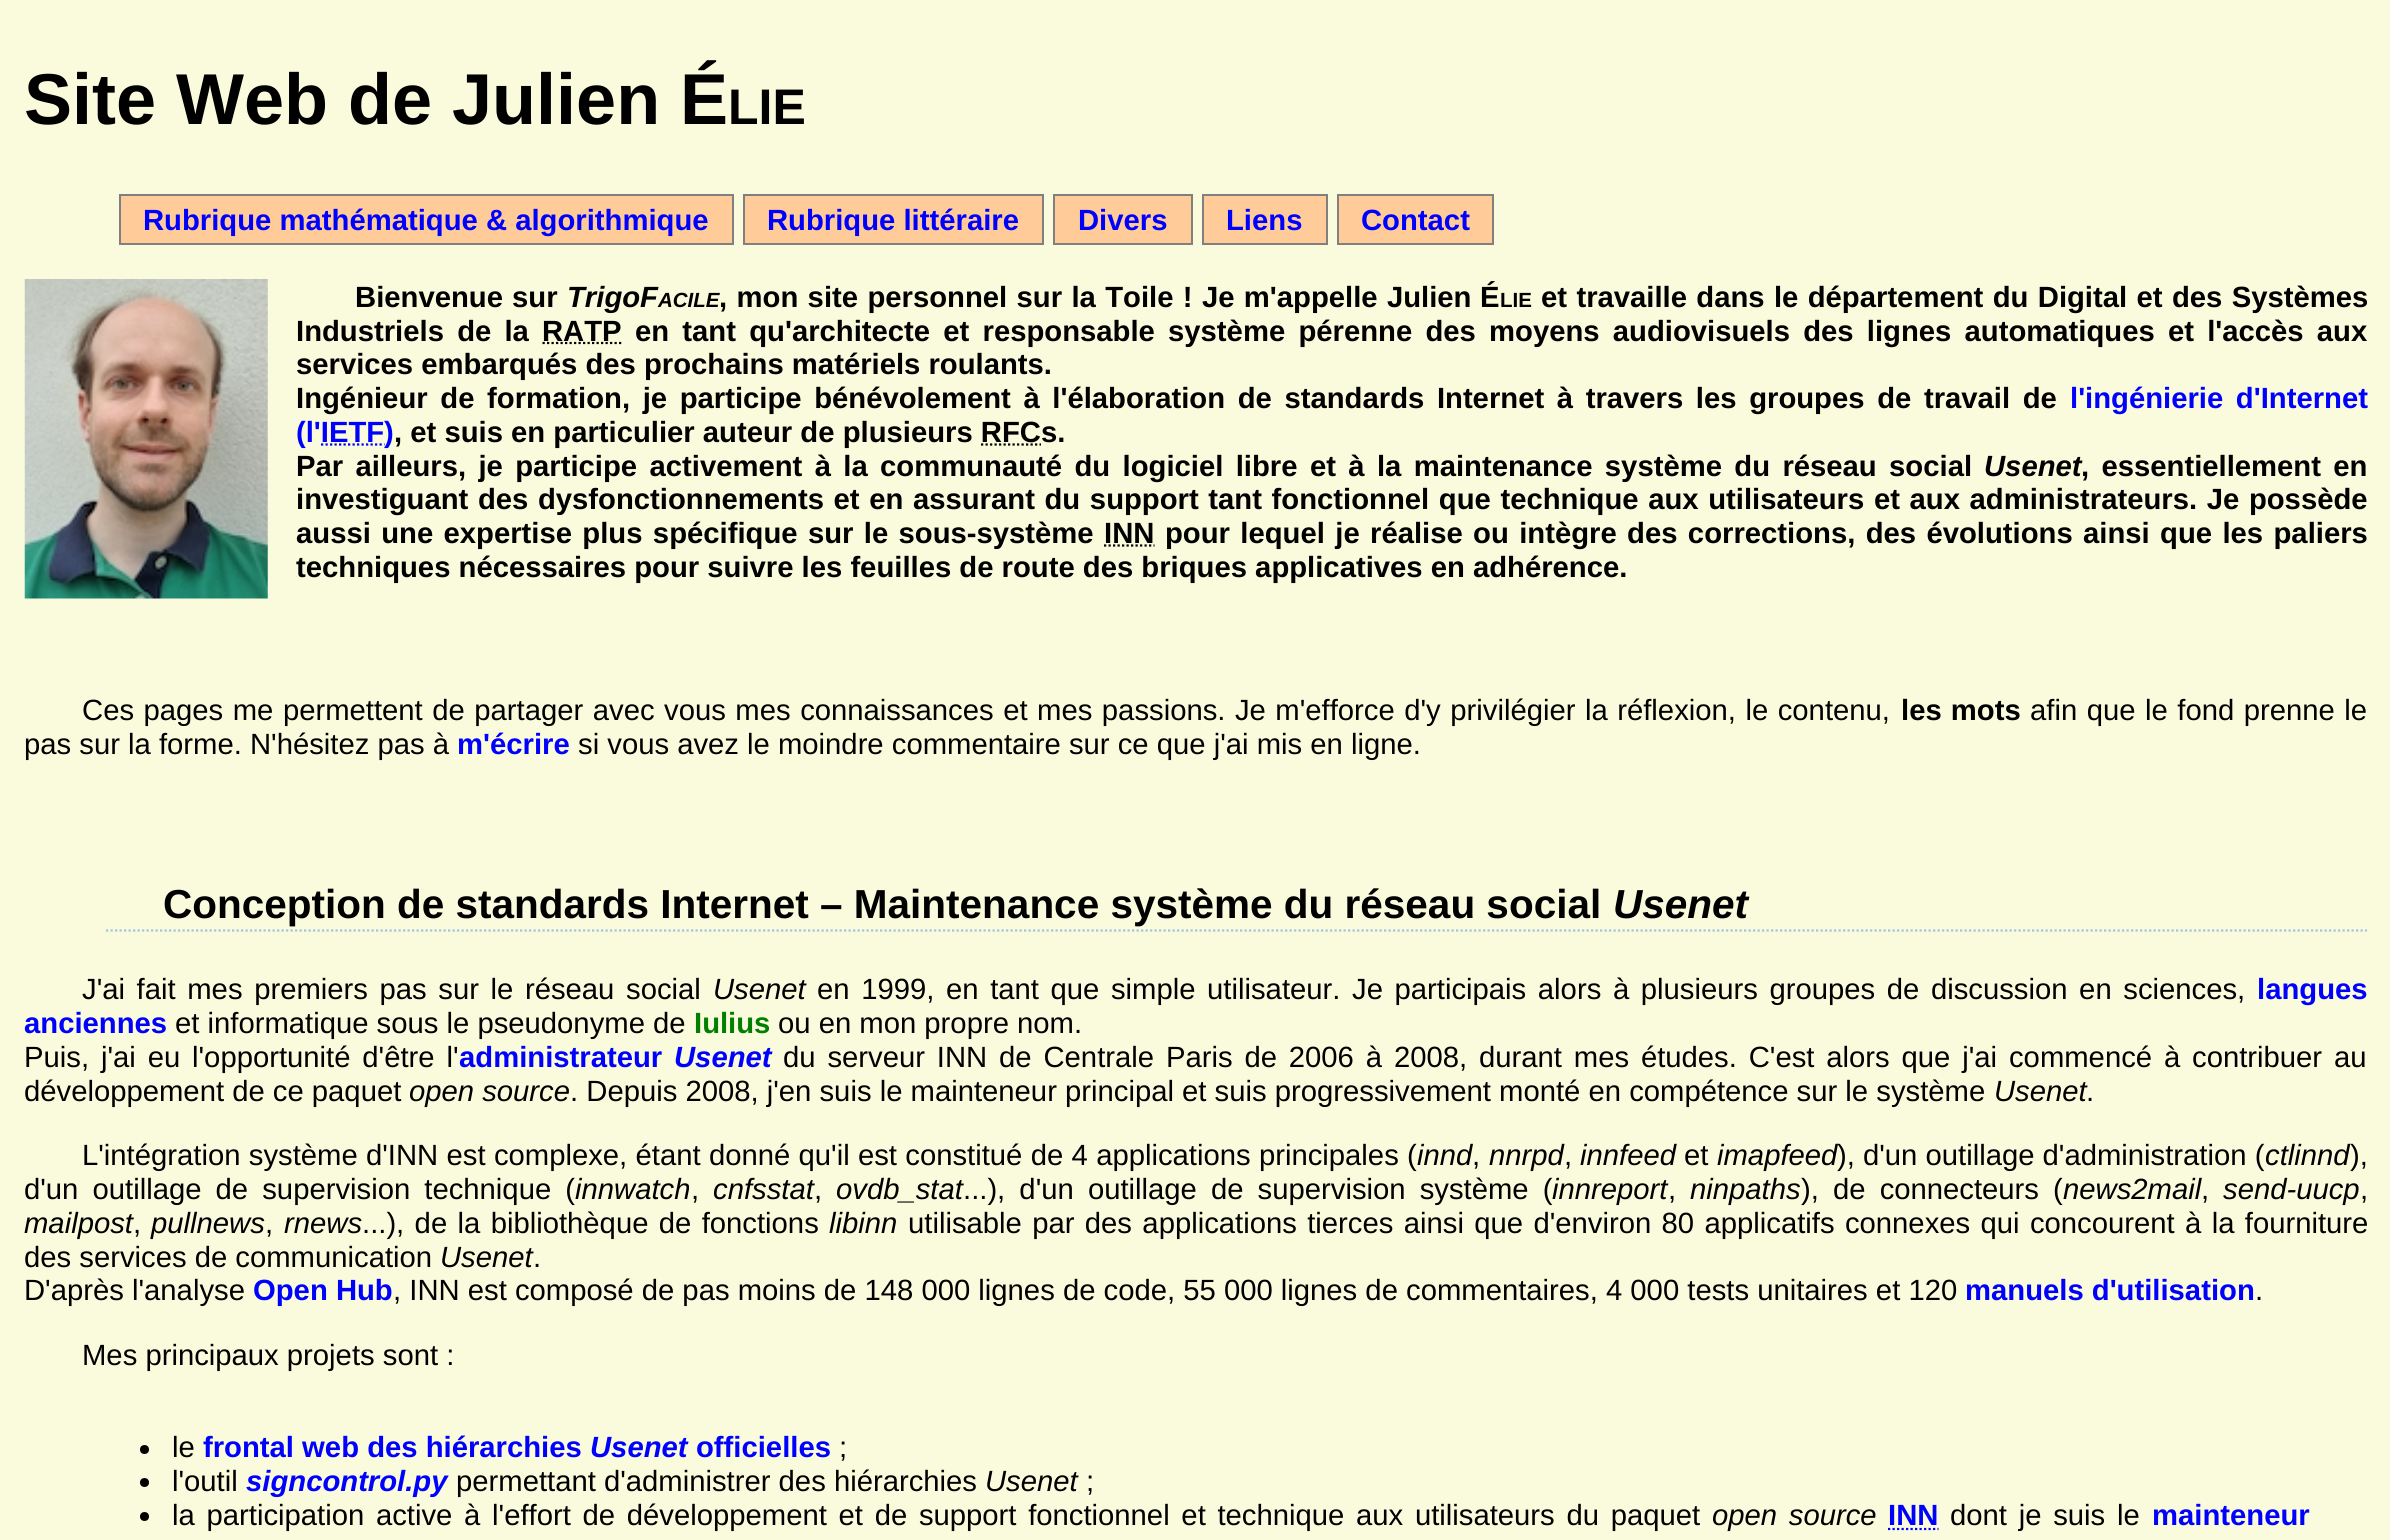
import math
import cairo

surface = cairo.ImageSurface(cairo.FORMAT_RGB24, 2390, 1540)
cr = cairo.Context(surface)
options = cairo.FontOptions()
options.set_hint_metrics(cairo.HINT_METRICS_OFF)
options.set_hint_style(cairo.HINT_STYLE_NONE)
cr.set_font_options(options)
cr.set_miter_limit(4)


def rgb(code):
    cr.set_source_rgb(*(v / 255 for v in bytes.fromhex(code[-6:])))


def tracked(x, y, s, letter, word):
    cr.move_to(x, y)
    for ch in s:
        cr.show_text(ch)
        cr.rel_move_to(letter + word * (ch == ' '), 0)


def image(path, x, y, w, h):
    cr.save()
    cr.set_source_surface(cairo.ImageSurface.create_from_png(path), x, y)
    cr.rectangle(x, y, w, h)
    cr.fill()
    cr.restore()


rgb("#fafadc")
cr.paint()
rgb("#ffcc99")
cr.rectangle(120, 195, 613, 49)
cr.fill_preserve()
rgb("#808080")
cr.stroke()
rgb("#ffcc99")
cr.rectangle(744, 195, 299, 49)
cr.fill_preserve()
rgb("#808080")
cr.stroke()
rgb("#ffcc99")
cr.rectangle(1054, 195, 138, 49)
cr.fill_preserve()
rgb("#808080")
cr.stroke()
rgb("#ffcc99")
cr.rectangle(1203, 195, 124, 49)
cr.fill_preserve()
rgb("#808080")
cr.stroke()
rgb("#ffcc99")
cr.rectangle(1338, 195, 155, 49)
cr.fill_preserve()
rgb("#808080")
cr.stroke()
image("img/1.png", 24, 279, 244, 320)
cr.new_path()
cr.move_to(542.5, 343)
cr.line_to(622, 343)
rgb("#000000")
cr.set_line_width(2.2)
cr.set_dash([2.25, 2.25])
cr.stroke()
cr.new_path()
cr.move_to(321, 444.5)
cr.line_to(384.5, 444.5)
rgb("#0000ff")
cr.stroke()
cr.new_path()
cr.move_to(981, 444.5)
cr.line_to(1041, 444.5)
rgb("#000000")
cr.stroke()
cr.new_path()
cr.move_to(1104, 545.5)
cr.line_to(1154.5, 545.5)
cr.stroke()
cr.new_path()
cr.move_to(106, 930.5)
cr.line_to(2367, 930.5)
rgb("#a1c2e1")
cr.stroke()
rgb("#000000")
cr.arc(144.5, 1449.5, 4.5, 0, 2 * math.pi)
cr.fill()
cr.arc(144.5, 1482.5, 4.5, 0, 2 * math.pi)
cr.fill()
cr.arc(144.5, 1516.5, 4.5, 0, 2 * math.pi)
cr.fill()
cr.new_path()
cr.move_to(1888, 1529)
cr.line_to(1938.5, 1529)
rgb("#0000ff")
cr.stroke()
cr.select_font_face("Liberation Sans", cairo.FONT_SLANT_NORMAL, cairo.FONT_WEIGHT_BOLD)
cr.set_font_size(72)
rgb("#000000")
cr.move_to(24, 124)
cr.show_text("Site Web de Julien É")
cr.set_font_size(50)
cr.move_to(728, 124)
cr.show_text("LIE")
cr.set_font_size(29.25)
rgb("#0000ff")
for x, y, s in [
    (143, 230, "Rubrique mathématique & algorithmique"),
    (767, 230, "Rubrique littéraire"),
    (1078, 230, "Divers"),
    (1226, 230, "Liens"),
    (1361, 230, "Contact"),
]:
    cr.move_to(x, y)
    cr.show_text(s)
rgb("#000000")
tracked(355, 307, "Bienvenue sur", 0, 1)
cr.select_font_face("Liberation Sans", cairo.FONT_SLANT_ITALIC, cairo.FONT_WEIGHT_BOLD)
cr.move_to(567, 307)
cr.show_text("TrigoF")
cr.set_font_size(20.5)
cr.move_to(658, 307)
cr.show_text("ACILE")
cr.select_font_face("Liberation Sans", cairo.FONT_SLANT_NORMAL, cairo.FONT_WEIGHT_BOLD)
cr.set_font_size(29.25)
tracked(719, 307, ", mon site personnel sur la Toile ! Je m'appelle Julien", 0, 1.25)
cr.move_to(1480, 307)
cr.show_text("É")
cr.set_font_size(20.5)
cr.move_to(1500, 307)
cr.show_text("LIE")
cr.set_font_size(29.25)
tracked(1541, 307, "et travaille dans le département du Digital et des Systèmes", 0, 1.25)
tracked(296, 341, "Industriels de la", 0, 5.1)
cr.move_to(542, 341)
cr.show_text("RATP")
tracked(635, 341, "en tant qu'architecte et responsable système pérenne des moyens audiovisuels des lignes automatiques et l'accès aux", 0, 5.1)
cr.move_to(296, 374)
cr.show_text("services embarqués des prochains matériels roulants.")
tracked(296, 408, "Ingénieur de formation, je participe bénévolement à l'élaboration de standards Internet à travers les groupes de travail de", 0, 4.5)
rgb("#0000ff")
tracked(2070, 408, "l'ingénierie d'Internet", 0, 4.5)
cr.move_to(296, 442)
cr.show_text("(l'IETF")
cr.move_to(384, 442)
cr.show_text(")")
rgb("#000000")
cr.move_to(394, 442)
cr.show_text(", et suis en particulier auteur de plusieurs RFCs.")
tracked(296, 476, "Par ailleurs, je participe activement à la communauté du logiciel libre et à la maintenance système du réseau social", 0, 4.25)
cr.select_font_face("Liberation Sans", cairo.FONT_SLANT_ITALIC, cairo.FONT_WEIGHT_BOLD)
cr.move_to(1984, 476)
cr.show_text("Usenet")
cr.select_font_face("Liberation Sans", cairo.FONT_SLANT_NORMAL, cairo.FONT_WEIGHT_BOLD)
tracked(2081, 476, ", essentiellement en", 0, 4.25)
tracked(296, 509, "investiguant des dysfonctionnements et en assurant du support tant fonctionnel que technique aux utilisateurs et aux administrateurs. Je possède", 0, 1.5)
tracked(296, 543, "aussi une expertise plus spécifique sur le sous-système", 0, 2.25)
cr.move_to(1104, 543)
cr.show_text("INN")
tracked(1165, 543, "pour lequel je réalise ou intègre des corrections, des évolutions ainsi que les paliers", 0, 2.25)
cr.move_to(296, 577)
cr.show_text("techniques nécessaires pour suivre les feuilles de route des briques applicatives en adhérence.")
cr.select_font_face("Liberation Sans")
tracked(82, 720, "Ces pages me permettent de partager avec vous mes connaissances et mes passions. Je m'efforce d'y privilégier la réflexion, le contenu,", 0, 1.4)
cr.select_font_face("Liberation Sans", cairo.FONT_SLANT_NORMAL, cairo.FONT_WEIGHT_BOLD)
tracked(1901, 720, "les mots", 0, 1)
cr.select_font_face("Liberation Sans")
tracked(2030, 720, "afin que le fond prenne le", 0, 1.4)
cr.move_to(24, 754)
cr.show_text("pas sur la forme. N'hésitez pas à")
cr.select_font_face("Liberation Sans", cairo.FONT_SLANT_NORMAL, cairo.FONT_WEIGHT_BOLD)
rgb("#0000ff")
cr.move_to(457, 754)
cr.show_text("m'écrire")
cr.select_font_face("Liberation Sans")
rgb("#000000")
cr.move_to(578, 754)
cr.show_text("si vous avez le moindre commentaire sur ce que j'ai mis en ligne.")
cr.select_font_face("Liberation Sans", cairo.FONT_SLANT_NORMAL, cairo.FONT_WEIGHT_BOLD)
cr.set_font_size(40.5)
cr.move_to(163, 918)
cr.show_text("Conception de standards Internet – Maintenance système du réseau social")
cr.select_font_face("Liberation Sans", cairo.FONT_SLANT_ITALIC, cairo.FONT_WEIGHT_BOLD)
cr.move_to(1613, 918)
cr.show_text("Usenet")
cr.select_font_face("Liberation Sans")
cr.set_font_size(29.25)
tracked(82, 999, "J'ai fait mes premiers pas sur le réseau social", 0, 3.5)
cr.select_font_face("Liberation Sans", cairo.FONT_SLANT_ITALIC)
cr.move_to(713, 999)
cr.show_text("Usenet")
cr.select_font_face("Liberation Sans")
tracked(817, 999, "en 1999, en tant que simple utilisateur. Je participais alors à plusieurs groupes de discussion en sciences,", 0, 3.5)
cr.select_font_face("Liberation Sans", cairo.FONT_SLANT_NORMAL, cairo.FONT_WEIGHT_BOLD)
rgb("#0000ff")
cr.move_to(2257, 999)
cr.show_text("langues")
cr.move_to(24, 1033)
cr.show_text("anciennes")
cr.select_font_face("Liberation Sans")
rgb("#000000")
cr.move_to(175, 1033)
cr.show_text("et informatique sous le pseudonyme de")
cr.select_font_face("Liberation Sans", cairo.FONT_SLANT_NORMAL, cairo.FONT_WEIGHT_BOLD)
rgb("#008000")
cr.move_to(694, 1033)
cr.show_text("Iulius")
cr.select_font_face("Liberation Sans")
rgb("#000000")
cr.move_to(778, 1033)
cr.show_text("ou en mon propre nom.")
tracked(24, 1067, "Puis, j'ai eu l'opportunité d'être l'", 0, 3.75)
cr.select_font_face("Liberation Sans", cairo.FONT_SLANT_NORMAL, cairo.FONT_WEIGHT_BOLD)
rgb("#0000ff")
cr.move_to(459, 1067)
cr.show_text("administrateur")
cr.select_font_face("Liberation Sans", cairo.FONT_SLANT_ITALIC, cairo.FONT_WEIGHT_BOLD)
cr.move_to(674, 1067)
cr.show_text("Usenet")
cr.select_font_face("Liberation Sans")
rgb("#000000")
tracked(783, 1067, "du serveur INN de Centrale Paris de 2006 à 2008, durant mes études. C'est alors que j'ai commencé à contribuer au", 0, 3.75)
cr.move_to(24, 1101)
cr.show_text("développement de ce paquet")
cr.select_font_face("Liberation Sans", cairo.FONT_SLANT_ITALIC)
cr.move_to(409, 1101)
cr.show_text("open source")
cr.select_font_face("Liberation Sans")
cr.move_to(570, 1101)
cr.show_text(". Depuis 2008, j'en suis le mainteneur principal et suis progressivement monté en compétence sur le système")
cr.select_font_face("Liberation Sans", cairo.FONT_SLANT_ITALIC)
cr.move_to(1994, 1101)
cr.show_text("Usenet")
cr.select_font_face("Liberation Sans")
cr.move_to(2086, 1101)
cr.show_text(".")
tracked(82, 1165, "L'intégration système d'INN est complexe, étant donné qu'il est constitué de 4 applications principales (", 0, 0.2)
cr.select_font_face("Liberation Sans", cairo.FONT_SLANT_ITALIC)
cr.move_to(1417, 1165)
cr.show_text("innd")
cr.select_font_face("Liberation Sans")
cr.move_to(1472, 1165)
cr.show_text(",")
cr.select_font_face("Liberation Sans", cairo.FONT_SLANT_ITALIC)
cr.move_to(1489, 1165)
cr.show_text("nnrpd")
cr.select_font_face("Liberation Sans")
cr.move_to(1564, 1165)
cr.show_text(",")
cr.select_font_face("Liberation Sans", cairo.FONT_SLANT_ITALIC)
cr.move_to(1580, 1165)
cr.show_text("innfeed")
cr.select_font_face("Liberation Sans")
cr.move_to(1684, 1165)
cr.show_text("et")
cr.select_font_face("Liberation Sans", cairo.FONT_SLANT_ITALIC)
cr.move_to(1717, 1165)
cr.show_text("imapfeed")
cr.select_font_face("Liberation Sans")
cr.move_to(1837, 1165)
cr.show_text("), d'un outillage d'administration (")
cr.select_font_face("Liberation Sans", cairo.FONT_SLANT_ITALIC)
cr.move_to(2265, 1165)
cr.show_text("ctlinnd")
cr.select_font_face("Liberation Sans")
cr.move_to(2350, 1165)
cr.show_text("),")
tracked(24, 1199, "d'un outillage de supervision technique (", 0, 6)
cr.select_font_face("Liberation Sans", cairo.FONT_SLANT_ITALIC)
cr.move_to(575, 1199)
cr.show_text("innwatch")
cr.select_font_face("Liberation Sans")
cr.move_to(691, 1199)
cr.show_text(",")
cr.select_font_face("Liberation Sans", cairo.FONT_SLANT_ITALIC)
cr.move_to(713, 1199)
cr.show_text("cnfsstat")
cr.select_font_face("Liberation Sans")
cr.move_to(814, 1199)
cr.show_text(",")
cr.select_font_face("Liberation Sans", cairo.FONT_SLANT_ITALIC)
cr.move_to(836, 1199)
cr.show_text("ovdb_stat")
cr.select_font_face("Liberation Sans")
tracked(963, 1199, "...), d'un outillage de supervision système (", 0, 6)
cr.select_font_face("Liberation Sans", cairo.FONT_SLANT_ITALIC)
cr.move_to(1552, 1199)
cr.show_text("innreport")
cr.select_font_face("Liberation Sans")
cr.move_to(1668, 1199)
cr.show_text(",")
cr.select_font_face("Liberation Sans", cairo.FONT_SLANT_ITALIC)
cr.move_to(1690, 1199)
cr.show_text("ninpaths")
cr.select_font_face("Liberation Sans")
tracked(1801, 1199, "), de connecteurs (", 0, 6)
cr.select_font_face("Liberation Sans", cairo.FONT_SLANT_ITALIC)
cr.move_to(2063, 1199)
cr.show_text("news2mail")
cr.select_font_face("Liberation Sans")
cr.move_to(2201, 1199)
cr.show_text(",")
cr.select_font_face("Liberation Sans", cairo.FONT_SLANT_ITALIC)
cr.move_to(2223, 1199)
cr.show_text("send-uucp")
cr.select_font_face("Liberation Sans")
cr.move_to(2360, 1199)
cr.show_text(",")
cr.select_font_face("Liberation Sans", cairo.FONT_SLANT_ITALIC)
cr.move_to(24, 1233)
cr.show_text("mailpost")
cr.select_font_face("Liberation Sans")
cr.move_to(133, 1233)
cr.show_text(",")
cr.select_font_face("Liberation Sans", cairo.FONT_SLANT_ITALIC)
cr.move_to(151, 1233)
cr.show_text("pullnews")
cr.select_font_face("Liberation Sans")
cr.move_to(265, 1233)
cr.show_text(",")
cr.select_font_face("Liberation Sans", cairo.FONT_SLANT_ITALIC)
cr.move_to(284, 1233)
cr.show_text("rnews")
cr.select_font_face("Liberation Sans")
tracked(362, 1233, "...), de la bibliothèque de fonctions", 0, 2.25)
cr.select_font_face("Liberation Sans", cairo.FONT_SLANT_ITALIC)
cr.move_to(829, 1233)
cr.show_text("libinn")
cr.select_font_face("Liberation Sans")
tracked(908, 1233, "utilisable par des applications tierces ainsi que d'environ 80 applicatifs connexes qui concourent à la fourniture", 0, 2.25)
cr.move_to(24, 1267)
cr.show_text("des services de communication")
cr.select_font_face("Liberation Sans", cairo.FONT_SLANT_ITALIC)
cr.move_to(440, 1267)
cr.show_text("Usenet")
cr.select_font_face("Liberation Sans")
cr.move_to(533, 1267)
cr.show_text(".")
cr.move_to(24, 1300)
cr.show_text("D'après l'analyse")
cr.select_font_face("Liberation Sans", cairo.FONT_SLANT_NORMAL, cairo.FONT_WEIGHT_BOLD)
rgb("#0000ff")
cr.move_to(253, 1300)
cr.show_text("Open Hub")
cr.select_font_face("Liberation Sans")
rgb("#000000")
cr.move_to(393, 1300)
cr.show_text(", INN est composé de pas moins de 148 000 lignes de code, 55 000 lignes de commentaires, 4 000 tests unitaires et 120")
cr.select_font_face("Liberation Sans", cairo.FONT_SLANT_NORMAL, cairo.FONT_WEIGHT_BOLD)
rgb("#0000ff")
cr.move_to(1965, 1300)
cr.show_text("manuels d'utilisation")
cr.select_font_face("Liberation Sans")
rgb("#000000")
for x, y, s in [
    (2255, 1300, "."),
    (82, 1365, "Mes principaux projets sont :"),
    (172, 1457, "le"),
]:
    cr.move_to(x, y)
    cr.show_text(s)
cr.select_font_face("Liberation Sans", cairo.FONT_SLANT_NORMAL, cairo.FONT_WEIGHT_BOLD)
rgb("#0000ff")
cr.move_to(203, 1457)
cr.show_text("frontal web des hiérarchies")
cr.select_font_face("Liberation Sans", cairo.FONT_SLANT_ITALIC, cairo.FONT_WEIGHT_BOLD)
cr.move_to(590, 1457)
cr.show_text("Usenet")
cr.select_font_face("Liberation Sans", cairo.FONT_SLANT_NORMAL, cairo.FONT_WEIGHT_BOLD)
cr.move_to(696, 1457)
cr.show_text("officielles")
cr.select_font_face("Liberation Sans")
rgb("#000000")
cr.move_to(839, 1457)
cr.show_text(";")
cr.move_to(172, 1491)
cr.show_text("l'outil")
cr.select_font_face("Liberation Sans", cairo.FONT_SLANT_ITALIC, cairo.FONT_WEIGHT_BOLD)
rgb("#0000ff")
cr.move_to(246, 1491)
cr.show_text("signcontrol.py")
cr.select_font_face("Liberation Sans")
rgb("#000000")
cr.move_to(456, 1491)
cr.show_text("permettant d'administrer des hiérarchies")
cr.select_font_face("Liberation Sans", cairo.FONT_SLANT_ITALIC)
cr.move_to(985, 1491)
cr.show_text("Usenet")
cr.select_font_face("Liberation Sans")
cr.move_to(1086, 1491)
cr.show_text(";")
tracked(172, 1525, "la participation active à l'effort de développement et de support fonctionnel et technique aux utilisateurs du paquet", 0, 3.6)
cr.select_font_face("Liberation Sans", cairo.FONT_SLANT_ITALIC)
tracked(1712, 1525, "open source", 0, 3.6)
cr.select_font_face("Liberation Sans", cairo.FONT_SLANT_NORMAL, cairo.FONT_WEIGHT_BOLD)
rgb("#0000ff")
cr.move_to(1888, 1525)
cr.show_text("INN")
cr.select_font_face("Liberation Sans")
rgb("#000000")
tracked(1950, 1525, "dont je suis le", 0, 3.6)
cr.select_font_face("Liberation Sans", cairo.FONT_SLANT_NORMAL, cairo.FONT_WEIGHT_BOLD)
rgb("#0000ff")
cr.move_to(2152, 1525)
cr.show_text("mainteneur")
surface.write_to_png("page.png")
